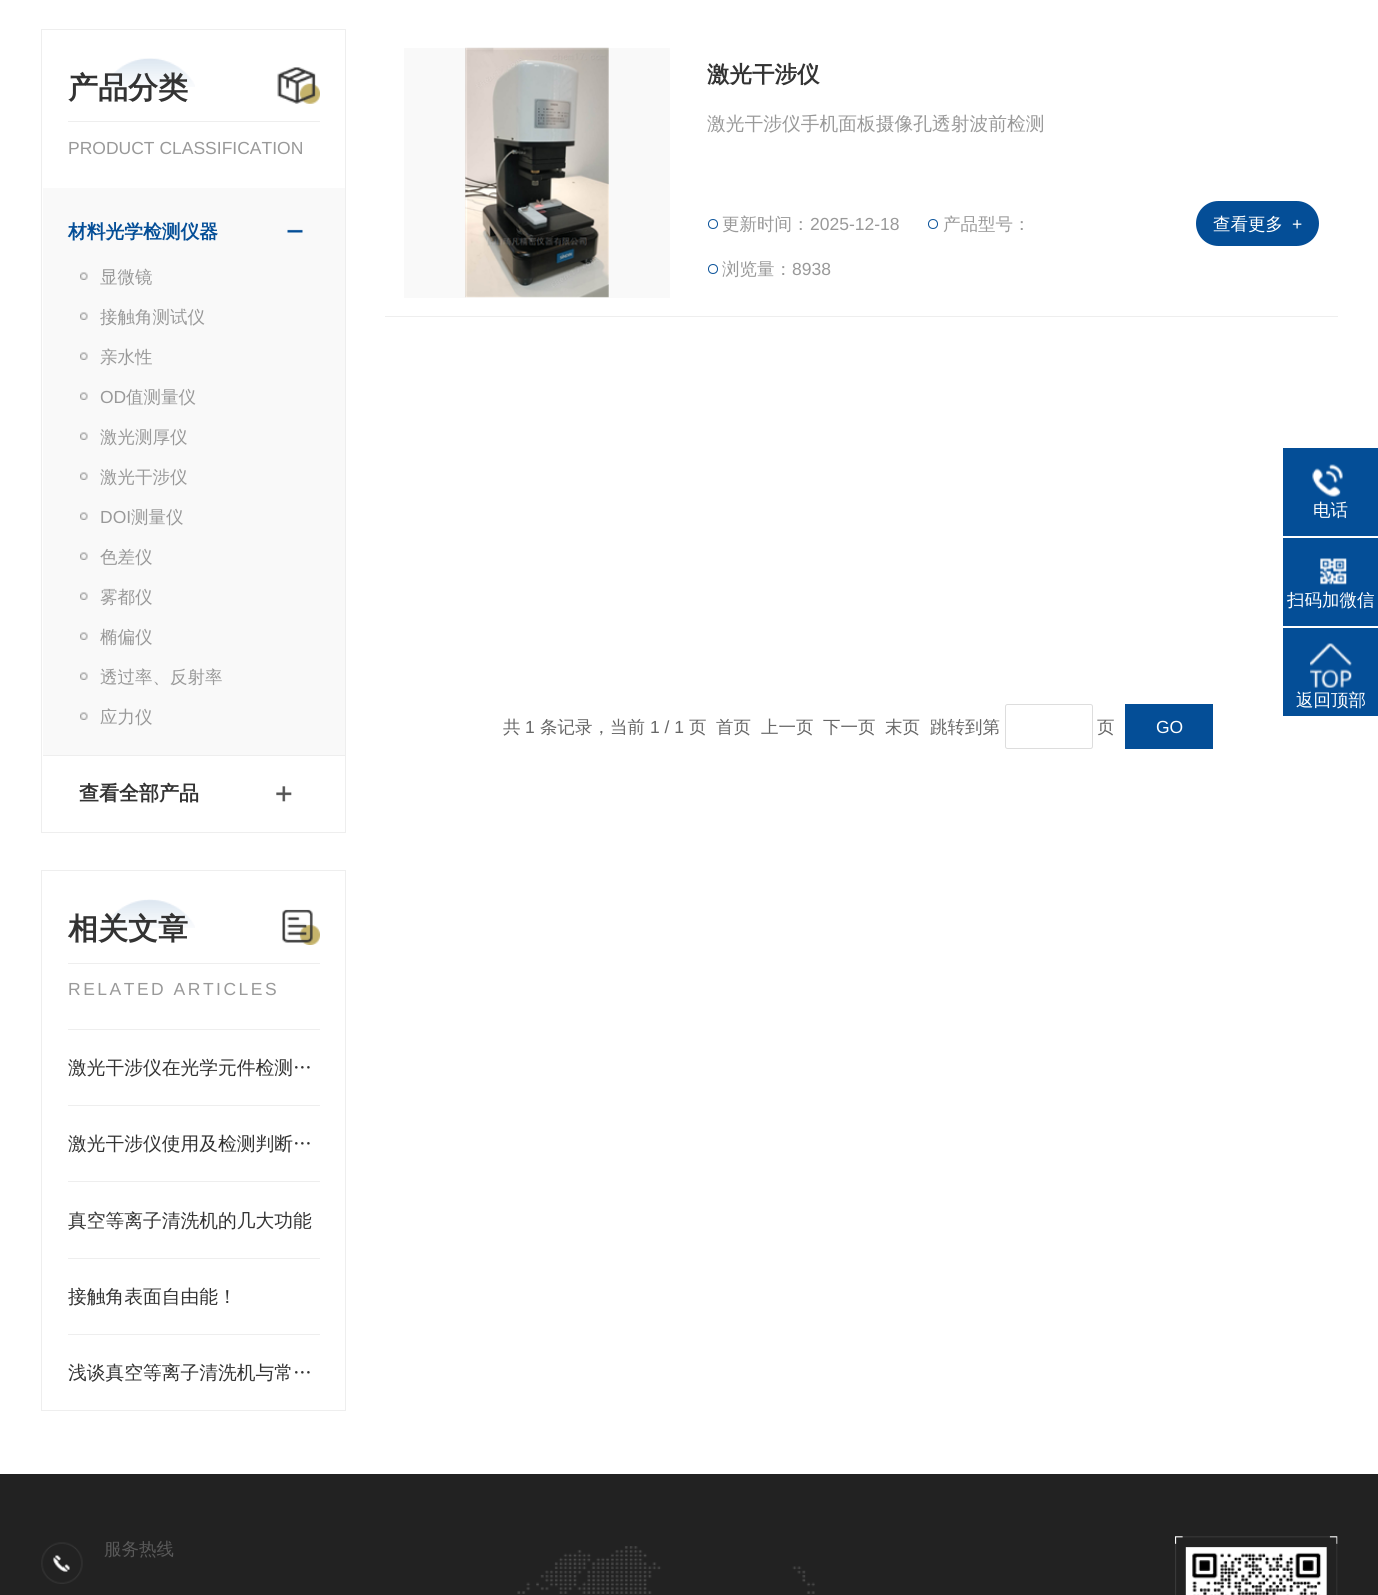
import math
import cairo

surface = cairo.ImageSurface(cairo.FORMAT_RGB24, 1378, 1595)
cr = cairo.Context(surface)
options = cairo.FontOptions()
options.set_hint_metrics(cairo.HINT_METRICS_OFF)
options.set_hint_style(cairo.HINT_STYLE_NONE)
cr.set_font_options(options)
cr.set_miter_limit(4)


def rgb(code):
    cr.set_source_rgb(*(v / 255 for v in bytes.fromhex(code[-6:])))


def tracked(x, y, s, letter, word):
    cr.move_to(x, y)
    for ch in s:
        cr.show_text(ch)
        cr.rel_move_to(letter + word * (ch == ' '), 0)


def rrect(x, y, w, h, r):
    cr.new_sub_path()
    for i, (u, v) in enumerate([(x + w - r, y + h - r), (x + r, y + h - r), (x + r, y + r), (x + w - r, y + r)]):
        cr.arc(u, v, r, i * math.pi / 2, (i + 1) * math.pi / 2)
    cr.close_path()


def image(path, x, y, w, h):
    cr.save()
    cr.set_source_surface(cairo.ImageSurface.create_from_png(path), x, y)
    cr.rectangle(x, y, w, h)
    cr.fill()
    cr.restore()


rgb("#ffffff")
cr.paint()
cr.rectangle(41.5, 29.5, 304, 803)
rgb("#eeeeee")
cr.set_line_width(1)
cr.stroke()
image("img/1.png", 105, 58, 90, 29)
cr.rectangle(68, 121, 252, 1)
cr.fill()
image("img/2.png", 277, 67, 43, 37)
rgb("#f9f9f9")
cr.rectangle(43, 188, 302, 567)
cr.fill()
rgb("#eeeeee")
cr.rectangle(43, 755, 302, 1)
cr.fill()
image("img/3.png", 287, 229, 16, 4)
image("img/4.png", 80, 272, 8, 8)
image("img/4.png", 80, 312, 8, 8)
image("img/4.png", 80, 352, 8, 8)
image("img/4.png", 80, 392, 8, 8)
image("img/5.png", 80, 432, 8, 8)
image("img/4.png", 80, 472, 8, 8)
image("img/4.png", 80, 512, 8, 8)
image("img/4.png", 80, 552, 8, 8)
image("img/4.png", 80, 592, 8, 8)
image("img/4.png", 80, 632, 8, 8)
image("img/4.png", 80, 672, 8, 8)
image("img/4.png", 80, 712, 8, 8)
image("img/6.png", 276, 786, 16, 16)
cr.rectangle(41.5, 870.5, 304, 540)
cr.stroke()
image("img/7.png", 105, 899, 90, 29)
cr.rectangle(68, 963, 252, 1)
cr.fill()
image("img/8.png", 282, 909, 38, 36)
for x, y, w, h, color in [
    (68, 1029, 252, 1, "#eeeeee"),
    (68, 1105, 252, 1, "#eeeeee"),
    (68, 1181, 252, 1, "#eeeeee"),
    (68, 1258, 252, 1, "#eeeeee"),
    (68, 1334, 252, 1, "#eeeeee"),
    (385, 316, 953, 1, "#eeeeee"),
    (404, 48, 266, 250, "#f9f9f9"),
]:
    rgb(color)
    cr.rectangle(x, y, w, h)
    cr.fill()
image("img/9.png", 465, 47, 144, 251)
cr.arc(713, 224, 4.5, 0, 2 * math.pi)
rgb("#044e97")
cr.stroke()
cr.arc(933, 224, 4.5, 0, 2 * math.pi)
cr.stroke()
cr.arc(713, 269, 4.5, 0, 2 * math.pi)
cr.stroke()
rrect(1196, 201, 123, 45, 22.5)
cr.fill()
rrect(1005.5, 704.5, 87, 44, 2)
rgb("#dddddd")
cr.stroke()
rgb("#044e97")
cr.rectangle(1125, 704, 88, 45)
cr.fill()
cr.rectangle(1283, 448, 95, 88)
cr.fill()
image("img/10.png", 1312, 464, 31, 33)
cr.rectangle(1283, 538, 95, 88)
cr.fill()
image("img/11.png", 1320, 558, 27, 27)
cr.rectangle(1283, 628, 95, 88)
cr.fill()
image("img/12.png", 1310, 643, 42, 45)
rgb("#222222")
cr.rectangle(0, 1474, 1378, 121)
cr.fill()
image("img/13.png", 517, 1546, 298, 48)
image("img/14.png", 41, 1542, 42, 42)
image("img/15.png", 1175, 1536, 163, 59)
cr.select_font_face("WenQuanYi Zen Hei", cairo.FONT_SLANT_NORMAL, cairo.FONT_WEIGHT_BOLD)
cr.set_font_size(30)
rgb("#333333")
cr.move_to(68, 98)
cr.show_text("产品分类")
cr.select_font_face("Liberation Sans")
cr.set_font_size(17.5)
rgb("#999999")
cr.move_to(68, 154)
cr.show_text("PRODUCT CLASSIFICATION")
cr.select_font_face("WenQuanYi Zen Hei", cairo.FONT_SLANT_NORMAL, cairo.FONT_WEIGHT_BOLD)
cr.set_font_size(18.75)
rgb("#044e97")
cr.move_to(68, 238)
cr.show_text("材料光学检测仪器")
cr.select_font_face("WenQuanYi Zen Hei Medium")
cr.set_font_size(17.5)
rgb("#999999")
for x, y, s in [
    (100, 283, "显微镜"),
    (100, 323, "接触角测试仪"),
    (100, 363, "亲水性"),
]:
    cr.move_to(x, y)
    cr.show_text(s)
cr.select_font_face("Liberation Sans")
cr.move_to(100, 403)
cr.show_text("OD")
cr.select_font_face("WenQuanYi Zen Hei Medium")
for x, y, s in [
    (126, 403, "值测量仪"),
    (100, 443, "激光测厚仪"),
    (100, 483, "激光干涉仪"),
]:
    cr.move_to(x, y)
    cr.show_text(s)
cr.select_font_face("Liberation Sans")
cr.move_to(100, 523)
cr.show_text("DOI")
cr.select_font_face("WenQuanYi Zen Hei Medium")
for x, y, s in [
    (131, 523, "测量仪"),
    (100, 563, "色差仪"),
    (100, 603, "雾都仪"),
    (100, 643, "椭偏仪"),
    (100, 683, "透过率、反射率"),
    (100, 723, "应力仪"),
]:
    cr.move_to(x, y)
    cr.show_text(s)
cr.select_font_face("WenQuanYi Zen Hei", cairo.FONT_SLANT_NORMAL, cairo.FONT_WEIGHT_BOLD)
cr.set_font_size(20)
rgb("#333333")
cr.move_to(79, 800)
cr.show_text("查看全部产品")
cr.set_font_size(30)
cr.move_to(68, 939)
cr.show_text("相关文章")
cr.select_font_face("Liberation Sans")
cr.set_font_size(17.5)
rgb("#999999")
tracked(68, 995, "RELATED ARTICLES", 2.5, 0)
cr.select_font_face("WenQuanYi Zen Hei Medium")
cr.set_font_size(18.75)
rgb("#333333")
for x, y, s in [
    (68, 1074, "激光干涉仪在光学元件检测…"),
    (68, 1150, "激光干涉仪使用及检测判断…"),
    (68, 1227, "真空等离子清洗机的几大功能"),
    (68, 1303, "接触角表面自由能！"),
    (68, 1379, "浅谈真空等离子清洗机与常…"),
]:
    cr.move_to(x, y)
    cr.show_text(s)
cr.select_font_face("WenQuanYi Zen Hei", cairo.FONT_SLANT_NORMAL, cairo.FONT_WEIGHT_BOLD)
cr.set_font_size(22.5)
cr.move_to(707, 82)
cr.show_text("激光干涉仪")
cr.select_font_face("WenQuanYi Zen Hei Medium")
cr.set_font_size(18.75)
rgb("#999999")
cr.move_to(707, 130)
cr.show_text("激光干涉仪手机面板摄像孔透射波前检测")
cr.set_font_size(17.5)
cr.move_to(722, 230)
cr.show_text("更新时间：")
cr.select_font_face("Liberation Sans")
cr.move_to(810, 230)
cr.show_text("2025-12-18")
cr.select_font_face("WenQuanYi Zen Hei Medium")
cr.move_to(943, 230)
cr.show_text("产品型号：")
cr.move_to(722, 275)
cr.show_text("浏览量：")
cr.select_font_face("Liberation Sans")
cr.move_to(792, 275)
cr.show_text("8938")
cr.select_font_face("WenQuanYi Zen Hei Medium")
rgb("#ffffff")
cr.move_to(1213, 230)
cr.show_text("查看更多")
cr.select_font_face("Liberation Sans")
cr.move_to(1292, 230)
cr.show_text("+")
cr.select_font_face("WenQuanYi Zen Hei Medium")
rgb("#666666")
cr.move_to(503, 733)
cr.show_text("共")
cr.select_font_face("Liberation Sans")
cr.move_to(525, 733)
cr.show_text("1")
cr.select_font_face("WenQuanYi Zen Hei Medium")
cr.move_to(540, 733)
cr.show_text("条记录，当前")
cr.select_font_face("Liberation Sans")
cr.move_to(650, 733)
cr.show_text("1 / 1")
cr.select_font_face("WenQuanYi Zen Hei Medium")
for x, y, s in [
    (689, 733, "页"),
    (716, 733, "首页"),
    (761, 733, "上一页"),
    (823, 733, "下一页"),
    (885, 733, "末页"),
    (930, 733, "跳转到第"),
    (1097, 733, "页"),
]:
    cr.move_to(x, y)
    cr.show_text(s)
cr.select_font_face("Liberation Sans")
rgb("#ffffff")
cr.move_to(1156, 733)
cr.show_text("GO")
cr.select_font_face("WenQuanYi Zen Hei Medium")
for x, y, s in [
    (1313, 516, "电话"),
    (1287, 606, "扫码加微信"),
    (1296, 706, "返回顶部"),
]:
    cr.move_to(x, y)
    cr.show_text(s)
rgb("#595959")
cr.move_to(104, 1555)
cr.show_text("服务热线")
surface.write_to_png("page.png")
